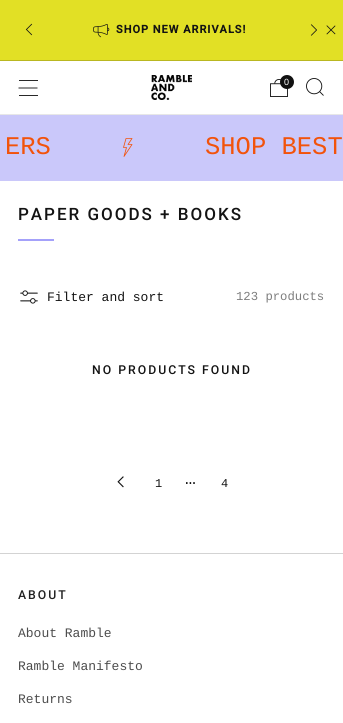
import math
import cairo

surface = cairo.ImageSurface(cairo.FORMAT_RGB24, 343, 723)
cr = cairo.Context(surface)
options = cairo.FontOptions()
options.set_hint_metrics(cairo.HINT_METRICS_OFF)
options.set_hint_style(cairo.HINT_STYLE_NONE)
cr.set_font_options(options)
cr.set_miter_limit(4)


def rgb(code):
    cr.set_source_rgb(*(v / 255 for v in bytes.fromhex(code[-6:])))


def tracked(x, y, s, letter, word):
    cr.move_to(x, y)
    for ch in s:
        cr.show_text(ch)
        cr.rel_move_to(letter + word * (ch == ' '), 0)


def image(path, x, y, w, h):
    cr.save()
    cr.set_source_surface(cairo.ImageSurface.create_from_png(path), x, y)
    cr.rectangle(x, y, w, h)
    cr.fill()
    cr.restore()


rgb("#ffffff")
cr.paint()
rgb("#e2e025")
cr.rectangle(0, 0, 343, 60)
cr.fill()
rgb("#b9b721")
cr.rectangle(0, 60, 343, 1)
cr.fill()
image("img/1.png", 25, 23, 8, 13)
image("img/2.png", 93, 24, 17, 14)
image("img/3.png", 310, 24, 7, 12)
image("img/4.png", 326, 25, 10, 10)
rgb("#e7e7e7")
cr.rectangle(0, 114, 343, 1)
cr.fill()
rgb("#292929")
cr.rectangle(19, 80, 19, 1)
cr.fill()
cr.new_path()
cr.move_to(18.5, 88)
cr.line_to(37.5, 88)
rgb("#111111")
cr.set_line_width(0.9)
cr.stroke()
rgb("#292929")
cr.rectangle(19, 95, 19, 1)
cr.fill()
image("img/5.png", 151, 75, 41, 25)
image("img/6.png", 270, 79, 18, 18)
rgb("#111111")
cr.arc(287, 82, 7, 0, 2 * math.pi)
cr.fill()
image("img/7.png", 306, 78, 18, 18)
rgb("#cac8fa")
cr.rectangle(0, 115, 343, 66)
cr.fill()
cr.new_path()
cr.move_to(124, 156.5)
cr.line_to(126.5, 147.5)
cr.line_to(123.5, 147.5)
cr.line_to(126, 138.5)
cr.line_to(132, 138.5)
cr.line_to(128, 144.5)
cr.line_to(132, 144.5)
cr.close_path()
rgb("#f2530b")
cr.set_line_width(0.8)
cr.set_line_cap(cairo.LINE_CAP_ROUND)
cr.set_line_join(cairo.LINE_JOIN_ROUND)
cr.stroke()
rgb("#a4a1fa")
cr.rectangle(18, 239, 36, 2)
cr.fill()
image("img/8.png", 20, 290, 18, 14)
image("img/9.png", 117, 476, 7, 12)
rgb("#d3d3d3")
cr.rectangle(0, 553, 343, 1)
cr.fill()
cr.select_font_face("Roboto", cairo.FONT_SLANT_NORMAL, cairo.FONT_WEIGHT_BOLD)
cr.set_font_size(11)
rgb("#131313")
tracked(116, 33, "SHOP NEW ARRIVALS!", 1, 0)
cr.select_font_face("Liberation Sans")
cr.set_font_size(9)
rgb("#ffffff")
cr.move_to(284, 85)
cr.show_text("0")
cr.select_font_face("Liberation Mono")
cr.set_font_size(25.5)
rgb("#f2530b")
cr.move_to(5, 154)
cr.show_text("ERS")
cr.move_to(205, 154)
cr.show_text("SHOP BEST")
cr.select_font_face("Roboto Medium")
cr.set_font_size(17)
rgb("#131313")
tracked(18, 220, "PAPER GOODS + BOOKS", 2, 0)
cr.select_font_face("Liberation Mono")
cr.set_font_size(13)
cr.move_to(47, 301)
cr.show_text("Filter and sort")
cr.set_font_size(12.25)
rgb("#7d7d7d")
cr.move_to(236, 300)
cr.show_text("123 products")
cr.select_font_face("Roboto Medium")
rgb("#131313")
tracked(92, 374, "NO PRODUCTS FOUND", 2, 0)
cr.select_font_face("Liberation Mono")
cr.set_font_size(12)
cr.move_to(155, 487)
cr.show_text("1")
cr.set_font_size(18)
cr.move_to(185, 484)
cr.show_text("…")
cr.set_font_size(12)
cr.move_to(221, 487)
cr.show_text("4")
cr.select_font_face("Roboto Medium")
cr.set_font_size(12.25)
rgb("#212121")
tracked(18, 599, "ABOUT", 2, 0)
cr.select_font_face("Liberation Mono")
cr.set_font_size(13)
rgb("#4d4d4d")
for x, y, s in [
    (18, 637, "About Ramble"),
    (18, 670, "Ramble Manifesto"),
    (18, 703, "Returns"),
]:
    cr.move_to(x, y)
    cr.show_text(s)
surface.write_to_png("page.png")
